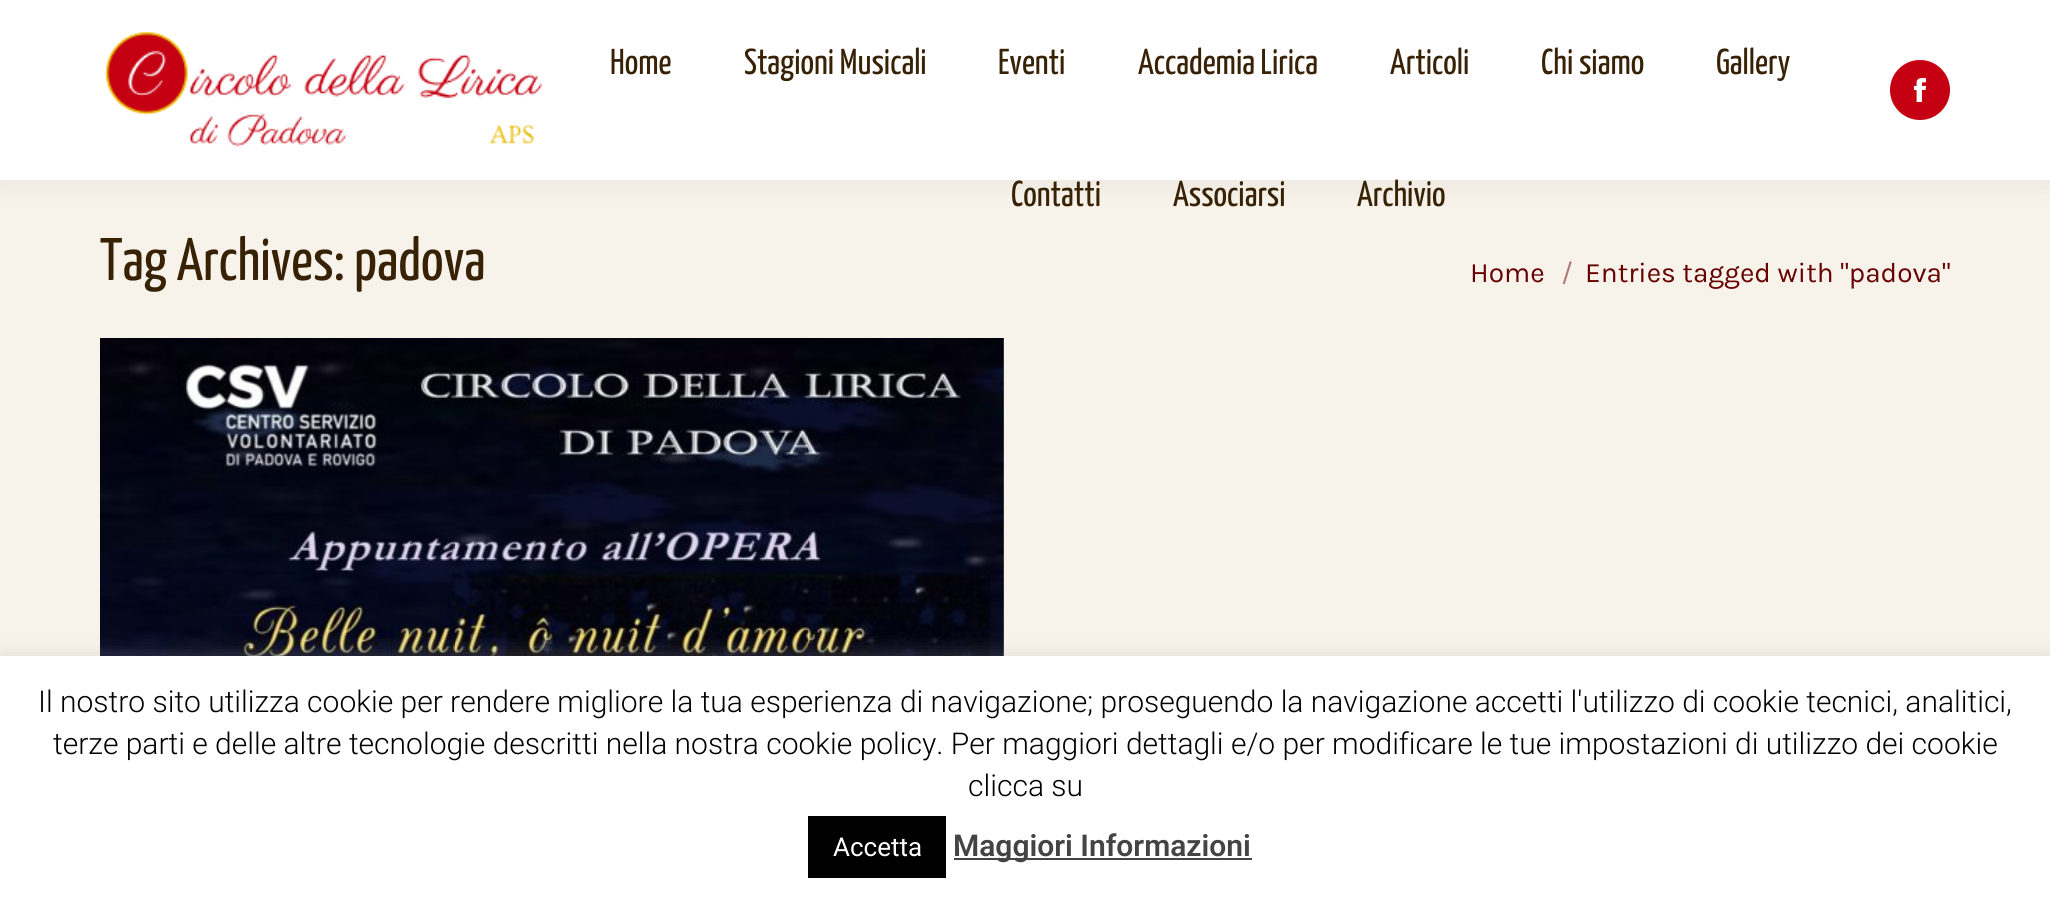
import math
import cairo

surface = cairo.ImageSurface(cairo.FORMAT_RGB24, 2050, 902)
cr = cairo.Context(surface)
options = cairo.FontOptions()
options.set_hint_metrics(cairo.HINT_METRICS_OFF)
options.set_hint_style(cairo.HINT_STYLE_NONE)
cr.set_font_options(options)
cr.set_miter_limit(4)


def rgb(code):
    cr.set_source_rgb(*(v / 255 for v in bytes.fromhex(code[-6:])))


def rrect(x, y, w, h, r):
    cr.new_sub_path()
    for i, (u, v) in enumerate([(x + w - r, y + h - r), (x + r, y + h - r), (x + r, y + r), (x + w - r, y + r)]):
        cr.arc(u, v, r, i * math.pi / 2, (i + 1) * math.pi / 2)
    cr.close_path()


def soft_shadow(x, y, w, h, r, blur, alpha):
    cr.push_group_with_content(cairo.CONTENT_ALPHA)
    cr.set_operator(cairo.OPERATOR_SOURCE)
    for i in range(15, -16, -2):
        e = blur * i / 6
        if min(w, h) + 2 * e > 0:
            cr.set_source_rgba(0, 0, 0, alpha * math.erfc((i - 1) / 8.5) / 2)
            rrect(x - e, y - e, w + 2 * e, h + 2 * e, max(0, min(r + e + blur * .6, min(w, h) / 2 + e)))
            cr.fill()
    cr.mask(cr.pop_group())


def image(path, x, y, w, h):
    cr.save()
    cr.set_source_surface(cairo.ImageSurface.create_from_png(path), x, y)
    cr.rectangle(x, y, w, h)
    cr.fill()
    cr.restore()


rgb("#f8f3ea")
cr.paint()
rgb("#000000")
soft_shadow(-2, -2, 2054, 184, 0, 15, 0.07)
rgb("#ffffff")
cr.rectangle(0, 0, 2050, 180)
cr.fill()
image("img/1.png", 104, 32, 439, 115)
rgb("#c50012")
cr.arc(1920, 90, 30, 0, 2 * math.pi)
cr.fill()
image("img/2.png", 1913, 78, 14, 24)
image("img/3.png", 100, 338, 904, 318)
rgb("#acabab")
soft_shadow(0, 654, 2050, 246, 0, 10, 0.3)
for x, y, w, h, color in [
    (0, 656, 2050, 246, "#ffffff"),
    (808, 816, 138, 62, "#000000"),
    (954, 858, 298, 2, "#444444"),
]:
    rgb(color)
    cr.rectangle(x, y, w, h)
    cr.fill()
cr.select_font_face("Yanone Kaffeesatz")
cr.set_font_size(36)
rgb("#382206")
for x, y, s in [
    (610, 74, "Home"),
    (744, 74, "Stagioni Musicali"),
    (998, 74, "Eventi"),
    (1138, 74, "Accademia Lirica"),
    (1390, 74, "Articoli"),
    (1541, 74, "Chi siamo"),
    (1716, 74, "Gallery"),
    (1011, 206, "Contatti"),
    (1173, 206, "Associarsi"),
    (1357, 206, "Archivio"),
]:
    cr.move_to(x, y)
    cr.show_text(s)
cr.set_font_size(60)
cr.move_to(100, 280)
cr.show_text("Tag Archives: padova")
cr.select_font_face("Karla")
cr.set_font_size(28)
rgb("#660000")
cr.move_to(1470, 282)
cr.show_text("Home")
rgb("#af7a75")
cr.move_to(1561, 282)
cr.show_text("/")
rgb("#660000")
cr.move_to(1585, 282)
cr.show_text("Entries tagged with \"padova\"")
cr.select_font_face("Roboto Light")
cr.set_font_size(30)
rgb("#000000")
for x, y, s in [
    (38, 712, "Il nostro sito utilizza cookie per rendere migliore la tua esperienza di navigazione; proseguendo la navigazione accetti l'utilizzo di cookie tecnici, analitici,"),
    (53, 754, "terze parti e delle altre tecnologie descritti nella nostra cookie policy. Per maggiori dettagli e/o per modificare le tue impostazioni di utilizzo dei cookie"),
    (968, 796, "clicca su"),
]:
    cr.move_to(x, y)
    cr.show_text(s)
cr.select_font_face("Roboto")
cr.set_font_size(26)
rgb("#ffffff")
cr.move_to(833, 856)
cr.show_text("Accetta")
cr.select_font_face("Roboto SemiBold")
cr.set_font_size(30)
rgb("#444444")
cr.move_to(953, 856)
cr.show_text("Maggiori Informazioni")
surface.write_to_png("page.png")
